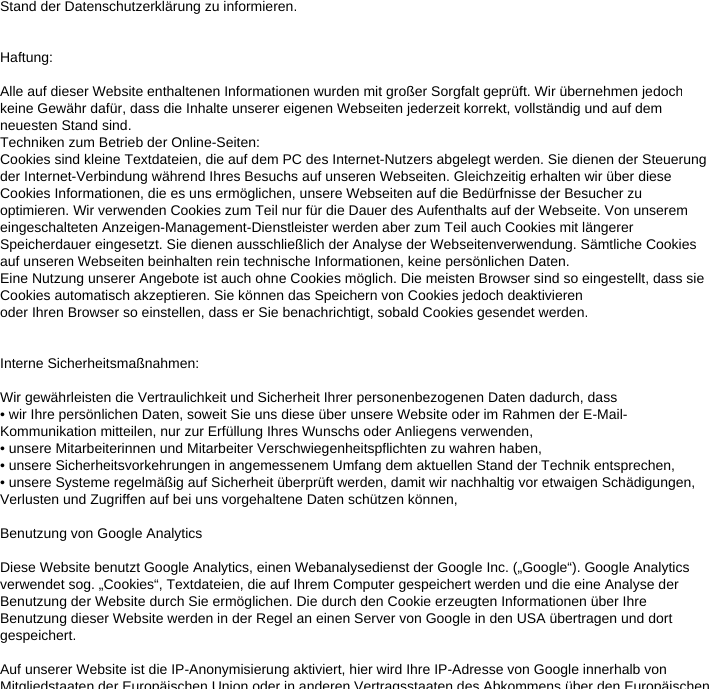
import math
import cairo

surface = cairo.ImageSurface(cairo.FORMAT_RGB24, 713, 689)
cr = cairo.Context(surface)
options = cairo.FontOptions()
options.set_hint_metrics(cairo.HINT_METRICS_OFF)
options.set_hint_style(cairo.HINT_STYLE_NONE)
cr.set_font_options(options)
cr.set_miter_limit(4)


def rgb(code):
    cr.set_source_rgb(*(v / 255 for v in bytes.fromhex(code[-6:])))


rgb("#ffffff")
cr.paint()
cr.select_font_face("Liberation Sans")
cr.set_font_size(14)
rgb("#000000")
for x, y, s in [
    (0, 11, "Stand der Datenschutzerklärung zu informieren."),
    (0, 62, "Haftung:"),
    (0, 96, "Alle auf dieser Website enthaltenen Informationen wurden mit großer Sorgfalt geprüft. Wir übernehmen jedoch"),
    (0, 113, "keine Gewähr dafür, dass die Inhalte unserer eigenen Webseiten jederzeit korrekt, vollständig und auf dem"),
    (0, 130, "neuesten Stand sind."),
    (0, 147, "Techniken zum Betrieb der Online-Seiten:"),
    (0, 164, "Cookies sind kleine Textdateien, die auf dem PC des Internet-Nutzers abgelegt werden. Sie dienen der Steuerung"),
    (0, 181, "der Internet-Verbindung während Ihres Besuchs auf unseren Webseiten. Gleichzeitig erhalten wir über diese"),
    (0, 198, "Cookies Informationen, die es uns ermöglichen, unsere Webseiten auf die Bedürfnisse der Besucher zu"),
    (0, 215, "optimieren. Wir verwenden Cookies zum Teil nur für die Dauer des Aufenthalts auf der Webseite. Von unserem"),
    (0, 232, "eingeschalteten Anzeigen-Management-Dienstleister werden aber zum Teil auch Cookies mit längerer"),
    (0, 249, "Speicherdauer eingesetzt. Sie dienen ausschließlich der Analyse der Webseitenverwendung. Sämtliche Cookies"),
    (0, 266, "auf unseren Webseiten beinhalten rein technische Informationen, keine persönlichen Daten."),
    (0, 283, "Eine Nutzung unserer Angebote ist auch ohne Cookies möglich. Die meisten Browser sind so eingestellt, dass sie"),
    (0, 300, "Cookies automatisch akzeptieren. Sie können das Speichern von Cookies jedoch deaktivieren"),
    (0, 317, "oder Ihren Browser so einstellen, dass er Sie benachrichtigt, sobald Cookies gesendet werden."),
    (0, 368, "Interne Sicherheitsmaßnahmen:"),
    (0, 402, "Wir gewährleisten die Vertraulichkeit und Sicherheit Ihrer personenbezogenen Daten dadurch, dass"),
    (0, 419, "• wir Ihre persönlichen Daten, soweit Sie uns diese über unsere Website oder im Rahmen der E-Mail-"),
    (0, 436, "Kommunikation mitteilen, nur zur Erfüllung Ihres Wunschs oder Anliegens verwenden,"),
    (0, 453, "• unsere Mitarbeiterinnen und Mitarbeiter Verschwiegenheitspflichten zu wahren haben,"),
    (0, 470, "• unsere Sicherheitsvorkehrungen in angemessenem Umfang dem aktuellen Stand der Technik entsprechen,"),
    (0, 487, "• unsere Systeme regelmäßig auf Sicherheit überprüft werden, damit wir nachhaltig vor etwaigen Schädigungen,"),
    (0, 504, "Verlusten und Zugriffen auf bei uns vorgehaltene Daten schützen können,"),
    (0, 538, "Benutzung von Google Analytics"),
    (0, 572, "Diese Website benutzt Google Analytics, einen Webanalysedienst der Google Inc. („Google“). Google Analytics"),
    (0, 589, "verwendet sog. „Cookies“, Textdateien, die auf Ihrem Computer gespeichert werden und die eine Analyse der"),
    (0, 606, "Benutzung der Website durch Sie ermöglichen. Die durch den Cookie erzeugten Informationen über Ihre"),
    (0, 623, "Benutzung dieser Website werden in der Regel an einen Server von Google in den USA übertragen und dort"),
    (0, 640, "gespeichert."),
    (0, 674, "Auf unserer Website ist die IP-Anonymisierung aktiviert, hier wird Ihre IP-Adresse von Google innerhalb von"),
    (0, 691, "Mitgliedstaaten der Europäischen Union oder in anderen Vertragsstaaten des Abkommens über den Europäischen"),
]:
    cr.move_to(x, y)
    cr.show_text(s)
surface.write_to_png("page.png")
